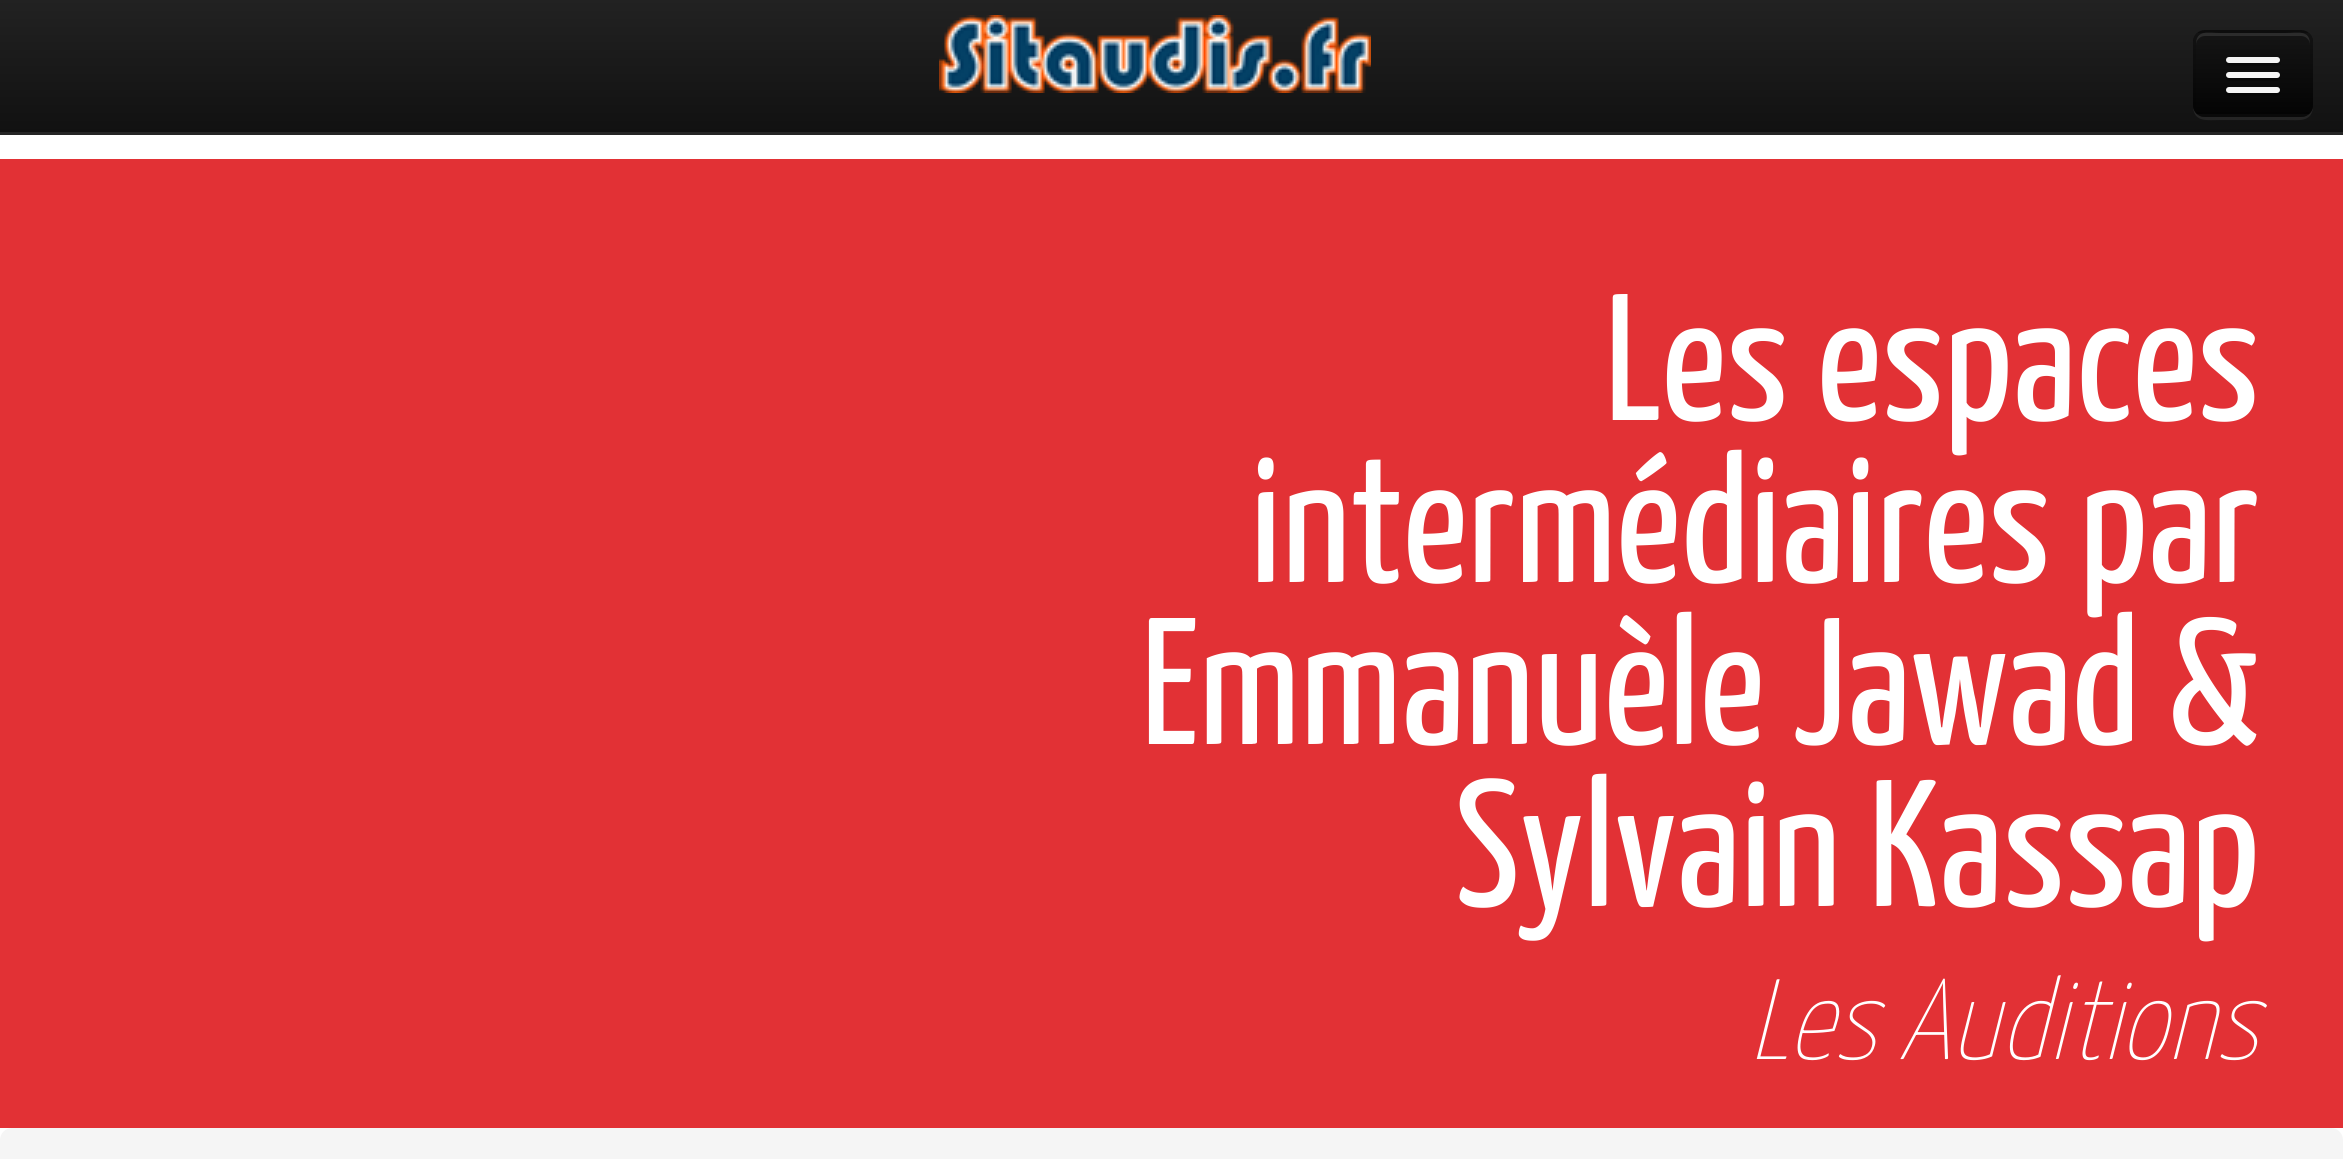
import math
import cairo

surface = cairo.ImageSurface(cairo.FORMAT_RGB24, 2343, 1159)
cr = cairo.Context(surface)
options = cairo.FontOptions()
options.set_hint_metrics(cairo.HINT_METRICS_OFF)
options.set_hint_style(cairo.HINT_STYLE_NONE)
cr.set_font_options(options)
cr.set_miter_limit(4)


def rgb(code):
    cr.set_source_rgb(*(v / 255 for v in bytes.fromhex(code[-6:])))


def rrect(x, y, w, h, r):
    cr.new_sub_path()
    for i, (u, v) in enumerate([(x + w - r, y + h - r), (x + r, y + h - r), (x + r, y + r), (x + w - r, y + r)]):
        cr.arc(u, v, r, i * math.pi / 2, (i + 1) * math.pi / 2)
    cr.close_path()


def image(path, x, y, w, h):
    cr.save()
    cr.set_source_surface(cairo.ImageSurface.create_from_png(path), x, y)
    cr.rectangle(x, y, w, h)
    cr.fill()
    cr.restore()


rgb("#ffffff")
cr.paint()
gradient = cairo.LinearGradient(1172, 0, 1172, 132)
gradient.add_color_stop_rgba(0, 0.133, 0.133, 0.133, 1)
gradient.add_color_stop_rgba(1, 0.067, 0.067, 0.067, 1)
cr.set_source(gradient)
cr.rectangle(0, 0, 2343, 132)
cr.fill()
rgb("#252525")
cr.rectangle(0, 132, 2343, 3)
cr.fill()
image("img/1.png", 939, 15, 432, 78)
cr.new_path()
cr.move_to(2193, 105)
cr.curve_to(2193, 123, 2207, 120, 2221, 120)
cr.line_to(2285, 120)
cr.curve_to(2299, 120, 2313, 123, 2313, 105)
cr.curve_to(2313, 112, 2308, 117, 2301, 117)
cr.line_to(2205, 117)
cr.curve_to(2198, 117, 2193, 112, 2193, 105)
cr.close_path()
cr.fill()
rgb("#0e0e0e")
rrect(2193, 30, 120, 87, 12)
cr.fill()
cr.save()
rrect(2193, 30, 120, 87, 12)
cr.clip()
gradient = cairo.LinearGradient(2253, 33, 2253, 114)
gradient.add_color_stop_rgba(0, 0.082, 0.082, 0.082, 1)
gradient.add_color_stop_rgba(1, 0.016, 0.016, 0.016, 1)
cr.set_source(gradient)
cr.rectangle(2193, 33, 120, 81)
cr.fill()
cr.restore()
rgb("#2c2c2c")
cr.new_path()
cr.move_to(2205, 36)
cr.line_to(2301, 36)
cr.curve_to(2306, 36, 2310, 40, 2310, 45)
cr.curve_to(2310, 29, 2298, 33, 2285, 33)
cr.line_to(2221, 33)
cr.curve_to(2208, 33, 2196, 29, 2196, 45)
cr.curve_to(2196, 40, 2200, 36, 2205, 36)
cr.close_path()
cr.fill()
cr.new_path()
cr.move_to(2308.5, 112.5)
cr.curve_to(2306.5, 114.5, 2304, 115.5, 2301, 115.5)
cr.line_to(2205, 115.5)
cr.curve_to(2202, 115.5, 2199.5, 114.5, 2197.5, 112.5)
cr.set_source_rgba(0, 0, 0, 0.25)
cr.set_line_width(3)
cr.stroke()
cr.new_path()
cr.move_to(2197.5, 112.5)
cr.curve_to(2195.5, 110.5, 2194.5, 108, 2194.5, 105)
cr.line_to(2194.5, 42)
cr.curve_to(2194.5, 39, 2195.5, 36.5, 2197.5, 34.5)
cr.curve_to(2199.5, 32.5, 2202, 31.5, 2205, 31.5)
cr.line_to(2301, 31.5)
cr.curve_to(2304, 31.5, 2306.5, 32.5, 2308.5, 34.5)
cr.curve_to(2310.5, 36.5, 2311.5, 39, 2311.5, 42)
cr.line_to(2311.5, 105)
cr.curve_to(2311.5, 108, 2310.5, 110.5, 2308.5, 112.5)
cr.set_source_rgba(0, 0, 0, 0.1)
cr.stroke()
rgb("#0b0b0b")
cr.new_path()
cr.move_to(2226, 62)
cr.curve_to(2223, 68, 2237, 66, 2237, 66)
cr.line_to(2269, 66)
cr.curve_to(2269, 66, 2283, 68, 2280, 62)
cr.curve_to(2279, 62, 2278, 63, 2277, 63)
cr.line_to(2229, 63)
cr.curve_to(2228, 63, 2227, 62, 2226, 62)
cr.close_path()
cr.fill()
rgb("#f5f5f5")
rrect(2226, 57, 54, 6, 3)
cr.fill()
rgb("#080808")
cr.new_path()
cr.move_to(2226, 76)
cr.curve_to(2223, 83, 2237, 81, 2237, 81)
cr.line_to(2269, 81)
cr.curve_to(2269, 81, 2283, 83, 2280, 76)
cr.curve_to(2279, 77, 2278, 78, 2277, 78)
cr.line_to(2229, 78)
cr.curve_to(2228, 78, 2227, 77, 2226, 76)
cr.close_path()
cr.fill()
rgb("#f5f5f5")
rrect(2226, 72, 54, 6, 3)
cr.fill()
rgb("#060606")
cr.new_path()
cr.move_to(2226, 92)
cr.curve_to(2223, 98, 2237, 96, 2237, 96)
cr.line_to(2269, 96)
cr.curve_to(2269, 96, 2283, 98, 2280, 92)
cr.curve_to(2279, 92, 2278, 93, 2277, 93)
cr.line_to(2229, 93)
cr.curve_to(2228, 93, 2227, 92, 2226, 92)
cr.close_path()
cr.fill()
rgb("#f5f5f5")
rrect(2226, 87, 54, 6, 3)
cr.fill()
rgb("#e23135")
cr.rectangle(0, 159, 2343, 969)
cr.fill()
rgb("#f5f5f5")
rrect(0, 1128, 2343, 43, 12)
cr.fill()
cr.select_font_face("Yanone Kaffeesatz")
cr.set_font_size(180)
rgb("#ffffff")
for x, y, s in [
    (1605, 420, "Les espaces"),
    (1250, 582, "intermédiaires par"),
    (1141, 744, "Emmanuèle Jawad &"),
    (1455, 906, "Sylvain Kassap"),
]:
    cr.move_to(x, y)
    cr.show_text(s)
cr.select_font_face("Yanone Kaffeesatz ExtraLight", cairo.FONT_SLANT_ITALIC)
cr.set_font_size(114)
cr.move_to(1749, 1059)
cr.show_text("Les Auditions")
surface.write_to_png("page.png")
